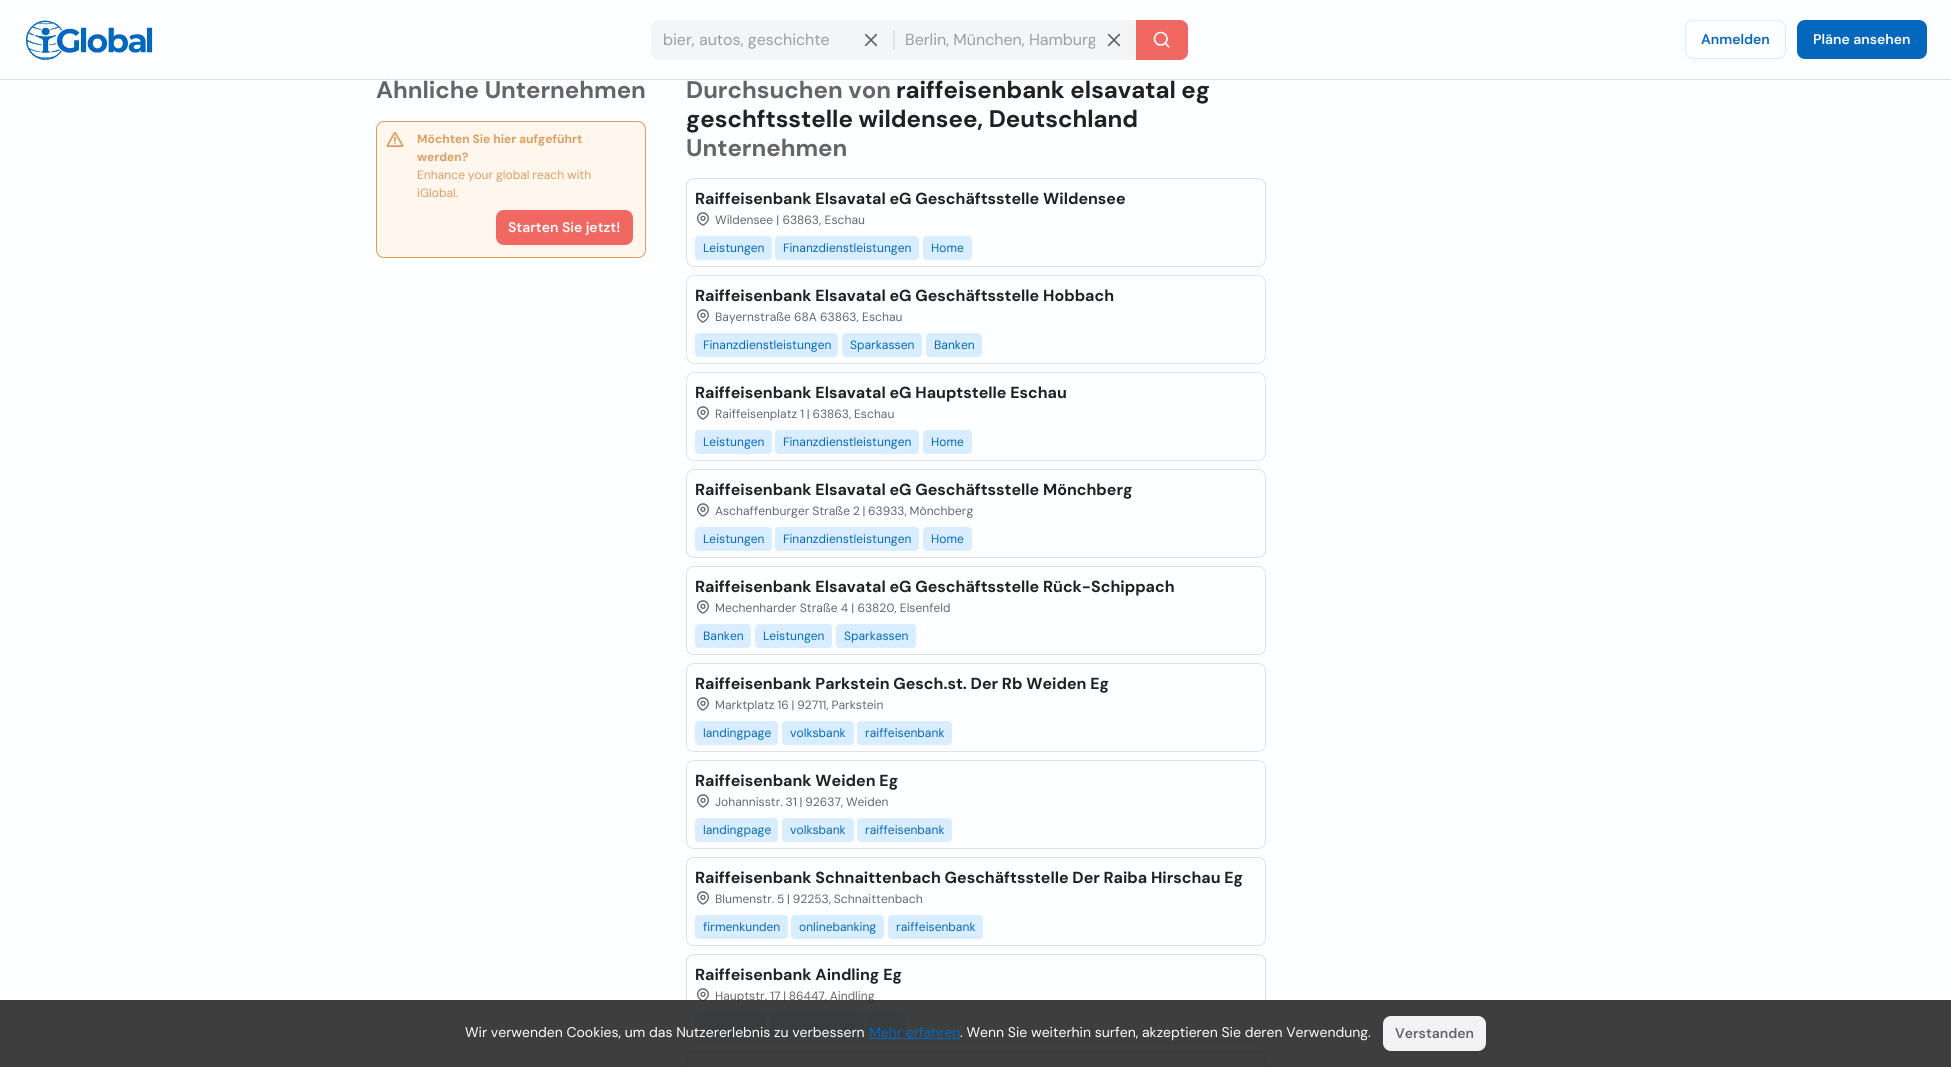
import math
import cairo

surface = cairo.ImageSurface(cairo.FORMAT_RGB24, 1951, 1067)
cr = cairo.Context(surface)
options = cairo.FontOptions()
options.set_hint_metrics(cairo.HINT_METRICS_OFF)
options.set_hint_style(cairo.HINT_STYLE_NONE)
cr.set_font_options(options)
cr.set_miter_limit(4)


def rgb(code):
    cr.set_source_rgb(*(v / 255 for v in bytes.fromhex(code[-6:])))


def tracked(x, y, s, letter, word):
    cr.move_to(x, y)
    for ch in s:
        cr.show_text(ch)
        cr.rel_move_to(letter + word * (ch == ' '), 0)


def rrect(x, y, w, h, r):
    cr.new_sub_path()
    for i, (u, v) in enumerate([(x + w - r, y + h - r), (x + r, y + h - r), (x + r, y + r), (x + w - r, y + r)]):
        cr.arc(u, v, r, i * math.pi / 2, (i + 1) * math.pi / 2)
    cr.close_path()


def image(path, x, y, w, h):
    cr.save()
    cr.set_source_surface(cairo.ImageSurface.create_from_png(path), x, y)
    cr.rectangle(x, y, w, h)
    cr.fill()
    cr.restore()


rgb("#fcfeff")
cr.paint()
image("img/1.png", 26, 20, 127, 40)
rgb("#f4f5f6")
cr.new_path()
cr.move_to(659, 20)
cr.line_to(893, 20)
cr.line_to(893, 60)
cr.line_to(659, 60)
cr.curve_to(654.5, 60, 651, 56.5, 651, 52)
cr.line_to(651, 28)
cr.curve_to(651, 23.5, 654.5, 20, 659, 20)
cr.close_path()
cr.fill()
image("img/2.png", 864, 33, 14, 14)
cr.rectangle(893, 20, 243, 40)
cr.fill()
rgb("#e1e1e5")
cr.rectangle(893, 30, 2, 20)
cr.fill()
image("img/2.png", 1107, 33, 14, 14)
rgb("#f16862")
cr.new_path()
cr.move_to(1136, 20)
cr.line_to(1180, 20)
cr.curve_to(1184.5, 20, 1188, 23.5, 1188, 28)
cr.line_to(1188, 52)
cr.curve_to(1188, 56.5, 1184.5, 60, 1180, 60)
cr.line_to(1136, 60)
cr.close_path()
cr.fill()
image("img/3.png", 1153, 31, 17, 17)
rrect(1685.5, 20.5, 100, 38, 7.5)
rgb("#d8edff")
cr.set_line_width(1)
cr.stroke()
rgb("#0367bd")
rrect(1797, 20, 130, 39, 8)
cr.fill()
rgb("#fff6ed")
rrect(376.5, 121.5, 269, 136, 7.5)
cr.fill_preserve()
rgb("#dd9d62")
cr.stroke()
image("img/4.png", 386, 132, 18, 15)
rgb("#f16862")
rrect(496, 210, 137, 35, 8)
cr.fill()
rrect(686.5, 178.5, 579, 88, 7.5)
rgb("#e1e1e5")
cr.stroke()
image("img/5.png", 697, 212, 12, 14)
rgb("#d8edff")
rrect(695, 236, 77, 24, 4)
cr.fill()
rrect(775, 236, 144, 24, 4)
cr.fill()
rrect(923, 236, 49, 24, 4)
cr.fill()
rrect(686.5, 275.5, 579, 88, 7.5)
rgb("#e1e1e5")
cr.stroke()
image("img/5.png", 697, 309, 12, 14)
rgb("#d8edff")
rrect(695, 333, 143, 24, 4)
cr.fill()
rrect(842, 333, 80, 24, 4)
cr.fill()
rrect(926, 333, 56, 24, 4)
cr.fill()
rrect(686.5, 372.5, 579, 88, 7.5)
rgb("#e1e1e5")
cr.stroke()
image("img/5.png", 697, 406, 12, 14)
rgb("#d8edff")
rrect(695, 430, 77, 24, 4)
cr.fill()
rrect(775, 430, 144, 24, 4)
cr.fill()
rrect(923, 430, 49, 24, 4)
cr.fill()
rrect(686.5, 469.5, 579, 88, 7.5)
rgb("#e1e1e5")
cr.stroke()
image("img/5.png", 697, 503, 12, 14)
rgb("#d8edff")
rrect(695, 527, 77, 24, 4)
cr.fill()
rrect(775, 527, 144, 24, 4)
cr.fill()
rrect(923, 527, 49, 24, 4)
cr.fill()
rrect(686.5, 566.5, 579, 88, 7.5)
rgb("#e1e1e5")
cr.stroke()
image("img/5.png", 697, 600, 12, 14)
rgb("#d8edff")
rrect(695, 624, 56, 24, 4)
cr.fill()
rrect(755, 624, 77, 24, 4)
cr.fill()
rrect(836, 624, 80, 24, 4)
cr.fill()
rrect(686.5, 663.5, 579, 88, 7.5)
rgb("#e1e1e5")
cr.stroke()
image("img/5.png", 697, 697, 12, 14)
rgb("#d8edff")
rrect(695, 721, 83, 24, 4)
cr.fill()
rrect(782, 721, 72, 24, 4)
cr.fill()
rrect(857, 721, 95, 24, 4)
cr.fill()
rrect(686.5, 760.5, 579, 88, 7.5)
rgb("#e1e1e5")
cr.stroke()
image("img/5.png", 697, 794, 12, 14)
rgb("#d8edff")
rrect(695, 818, 83, 24, 4)
cr.fill()
rrect(782, 818, 72, 24, 4)
cr.fill()
rrect(857, 818, 95, 24, 4)
cr.fill()
rrect(686.5, 857.5, 579, 88, 7.5)
rgb("#e1e1e5")
cr.stroke()
image("img/5.png", 697, 891, 12, 14)
rgb("#d8edff")
rrect(695, 915, 93, 24, 4)
cr.fill()
rrect(791, 915, 93, 24, 4)
cr.fill()
rrect(888, 915, 95, 24, 4)
cr.fill()
rrect(686.5, 954.5, 579, 88, 7.5)
rgb("#e1e1e5")
cr.stroke()
image("img/5.png", 697, 988, 12, 14)
rgb("#d8edff")
rrect(695, 1012, 71, 24, 4)
cr.fill()
rrect(770, 1012, 94, 24, 4)
cr.fill()
rrect(868, 1012, 37, 24, 4)
cr.fill()
rrect(686.5, 1051.5, 579, 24, 7.5)
rgb("#e1e1e5")
cr.stroke()
cr.select_font_face("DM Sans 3")
cr.set_font_size(16)
rgb("#9d9c9e")
cr.move_to(663, 45)
cr.show_text("bier, autos, geschichte")
cr.save()
cr.rectangle(905, 29, 190, 21)
cr.clip()
cr.move_to(905, 45)
cr.show_text("Berlin, München, Hamburg")
cr.restore()
cr.select_font_face("DM Sans SemiBold")
cr.set_font_size(14)
rgb("#0367bd")
cr.move_to(1701, 44)
cr.show_text("Anmelden")
rgb("#ffffff")
cr.move_to(1813, 44)
cr.show_text("Pläne ansehen")
cr.select_font_face("DM Sans", cairo.FONT_SLANT_NORMAL, cairo.FONT_WEIGHT_BOLD)
cr.set_font_size(24)
rgb("#656566")
cr.move_to(376, 98)
cr.show_text("Ähnliche Unternehmen")
rgb("#e1e1e5")
cr.rectangle(0, 79, 1951, 1)
cr.fill()
rgb("#fcfeff")
cr.rectangle(380, 76, 8, 3)
cr.fill()
cr.select_font_face("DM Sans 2", cairo.FONT_SLANT_NORMAL, cairo.FONT_WEIGHT_BOLD)
cr.set_font_size(12)
rgb("#dd9d62")
cr.move_to(417, 143)
cr.show_text("Möchten Sie hier aufgeführt")
cr.move_to(417, 161)
cr.show_text("werden?")
cr.select_font_face("DM Sans")
tracked(417, 179, "Enhance your global reach with", 0, -0.5)
cr.move_to(417, 197)
cr.show_text("iGlobal.")
cr.select_font_face("DM Sans SemiBold")
cr.set_font_size(14)
rgb("#ffffff")
cr.move_to(508, 232)
cr.show_text("Starten Sie jetzt!")
cr.select_font_face("DM Sans", cairo.FONT_SLANT_NORMAL, cairo.FONT_WEIGHT_BOLD)
cr.set_font_size(24)
rgb("#656566")
cr.move_to(686, 98)
cr.show_text("Durchsuchen von")
rgb("#212121")
cr.move_to(896, 98)
cr.show_text("raiffeisenbank elsavatal eg")
cr.move_to(686, 127)
cr.show_text("geschftsstelle wildensee, Deutschland")
rgb("#656566")
cr.move_to(686, 156)
cr.show_text("Unternehmen")
cr.select_font_face("DM Sans 3", cairo.FONT_SLANT_NORMAL, cairo.FONT_WEIGHT_BOLD)
cr.set_font_size(16)
rgb("#212121")
cr.move_to(695, 204)
cr.show_text("Raiffeisenbank Elsavatal eG Geschäftsstelle Wildensee")
cr.select_font_face("DM Sans")
cr.set_font_size(12)
rgb("#656566")
cr.move_to(715, 224)
cr.show_text("Wildensee | 63863, Eschau")
rgb("#0367bd")
for x, y, s in [
    (703, 252, "Leistungen"),
    (783, 252, "Finanzdienstleistungen"),
    (931, 252, "Home"),
]:
    cr.move_to(x, y)
    cr.show_text(s)
cr.select_font_face("DM Sans 3", cairo.FONT_SLANT_NORMAL, cairo.FONT_WEIGHT_BOLD)
cr.set_font_size(16)
rgb("#212121")
cr.move_to(695, 301)
cr.show_text("Raiffeisenbank Elsavatal eG Geschäftsstelle Hobbach")
cr.select_font_face("DM Sans")
cr.set_font_size(12)
rgb("#656566")
cr.move_to(715, 321)
cr.show_text("Bayernstraße 68A 63863, Eschau")
rgb("#0367bd")
for x, y, s in [
    (703, 349, "Finanzdienstleistungen"),
    (850, 349, "Sparkassen"),
    (934, 349, "Banken"),
]:
    cr.move_to(x, y)
    cr.show_text(s)
cr.select_font_face("DM Sans 3", cairo.FONT_SLANT_NORMAL, cairo.FONT_WEIGHT_BOLD)
cr.set_font_size(16)
rgb("#212121")
cr.move_to(695, 398)
cr.show_text("Raiffeisenbank Elsavatal eG Hauptstelle Eschau")
cr.select_font_face("DM Sans")
cr.set_font_size(12)
rgb("#656566")
tracked(715, 418, "Raiffeisenplatz 1 | 63863, Eschau", 0, -0.5)
rgb("#0367bd")
for x, y, s in [
    (703, 446, "Leistungen"),
    (783, 446, "Finanzdienstleistungen"),
    (931, 446, "Home"),
]:
    cr.move_to(x, y)
    cr.show_text(s)
cr.select_font_face("DM Sans 3", cairo.FONT_SLANT_NORMAL, cairo.FONT_WEIGHT_BOLD)
cr.set_font_size(16)
rgb("#212121")
cr.move_to(695, 495)
cr.show_text("Raiffeisenbank Elsavatal eG Geschäftsstelle Mönchberg")
cr.select_font_face("DM Sans")
cr.set_font_size(12)
rgb("#656566")
tracked(715, 515, "Aschaffenburger Straße 2 | 63933, Mönchberg", 0, -0.5)
rgb("#0367bd")
for x, y, s in [
    (703, 543, "Leistungen"),
    (783, 543, "Finanzdienstleistungen"),
    (931, 543, "Home"),
]:
    cr.move_to(x, y)
    cr.show_text(s)
cr.select_font_face("DM Sans 3", cairo.FONT_SLANT_NORMAL, cairo.FONT_WEIGHT_BOLD)
cr.set_font_size(16)
rgb("#212121")
cr.move_to(695, 592)
cr.show_text("Raiffeisenbank Elsavatal eG Geschäftsstelle Rück-Schippach")
cr.select_font_face("DM Sans")
cr.set_font_size(12)
rgb("#656566")
cr.move_to(715, 612)
cr.show_text("Mechenharder Straße 4 | 63820, Elsenfeld")
rgb("#0367bd")
for x, y, s in [
    (703, 640, "Banken"),
    (763, 640, "Leistungen"),
    (844, 640, "Sparkassen"),
]:
    cr.move_to(x, y)
    cr.show_text(s)
cr.select_font_face("DM Sans 3", cairo.FONT_SLANT_NORMAL, cairo.FONT_WEIGHT_BOLD)
cr.set_font_size(16)
rgb("#212121")
cr.move_to(695, 689)
cr.show_text("Raiffeisenbank Parkstein Gesch.st. Der Rb Weiden Eg")
cr.select_font_face("DM Sans")
cr.set_font_size(12)
rgb("#656566")
tracked(715, 709, "Marktplatz 16 | 92711, Parkstein", 0, -0.5)
rgb("#0367bd")
for x, y, s in [
    (703, 737, "landingpage"),
    (790, 737, "volksbank"),
    (865, 737, "raiffeisenbank"),
]:
    cr.move_to(x, y)
    cr.show_text(s)
cr.select_font_face("DM Sans 3", cairo.FONT_SLANT_NORMAL, cairo.FONT_WEIGHT_BOLD)
cr.set_font_size(16)
rgb("#212121")
cr.move_to(695, 786)
cr.show_text("Raiffeisenbank Weiden Eg")
cr.select_font_face("DM Sans")
cr.set_font_size(12)
rgb("#656566")
tracked(715, 806, "Johannisstr. 31 | 92637, Weiden", 0, -0.5)
rgb("#0367bd")
for x, y, s in [
    (703, 834, "landingpage"),
    (790, 834, "volksbank"),
    (865, 834, "raiffeisenbank"),
]:
    cr.move_to(x, y)
    cr.show_text(s)
cr.select_font_face("DM Sans 3", cairo.FONT_SLANT_NORMAL, cairo.FONT_WEIGHT_BOLD)
cr.set_font_size(16)
rgb("#212121")
cr.move_to(695, 883)
cr.show_text("Raiffeisenbank Schnaittenbach Geschäftsstelle Der Raiba Hirschau Eg")
cr.select_font_face("DM Sans")
cr.set_font_size(12)
rgb("#656566")
tracked(715, 903, "Blumenstr. 5 | 92253, Schnaittenbach", 0, -0.5)
rgb("#0367bd")
for x, y, s in [
    (703, 931, "firmenkunden"),
    (799, 931, "onlinebanking"),
    (896, 931, "raiffeisenbank"),
]:
    cr.move_to(x, y)
    cr.show_text(s)
cr.select_font_face("DM Sans 3", cairo.FONT_SLANT_NORMAL, cairo.FONT_WEIGHT_BOLD)
cr.set_font_size(16)
rgb("#212121")
cr.move_to(695, 980)
cr.show_text("Raiffeisenbank Aindling Eg")
cr.select_font_face("DM Sans")
cr.set_font_size(12)
rgb("#656566")
tracked(715, 1000, "Hauptstr. 17 | 86447, Aindling", 0, -0.5)
cr.set_source_rgba(0.133, 0.133, 0.133, 0.87)
cr.rectangle(0, 1000, 1951, 67)
cr.fill()
cr.select_font_face("DM Sans 2")
cr.set_font_size(14)
rgb("#ffffff")
cr.move_to(465, 1037)
cr.show_text("Wir verwenden Cookies, um das Nutzererlebnis zu verbessern")
rgb("#0367bd")
cr.move_to(869, 1037)
cr.show_text("Mehr erfahren")
cr.rectangle(869, 1038, 91, 1)
cr.fill()
rgb("#ffffff")
cr.move_to(960, 1037)
cr.show_text(". Wenn Sie weiterhin surfen, akzeptieren Sie deren Verwendung.")
rgb("#f3f3f5")
rrect(1383, 1016, 103, 35, 8)
cr.fill()
cr.select_font_face("DM Sans SemiBold")
rgb("#656566")
cr.move_to(1395, 1038)
cr.show_text("Verstanden")
surface.write_to_png("page.png")
